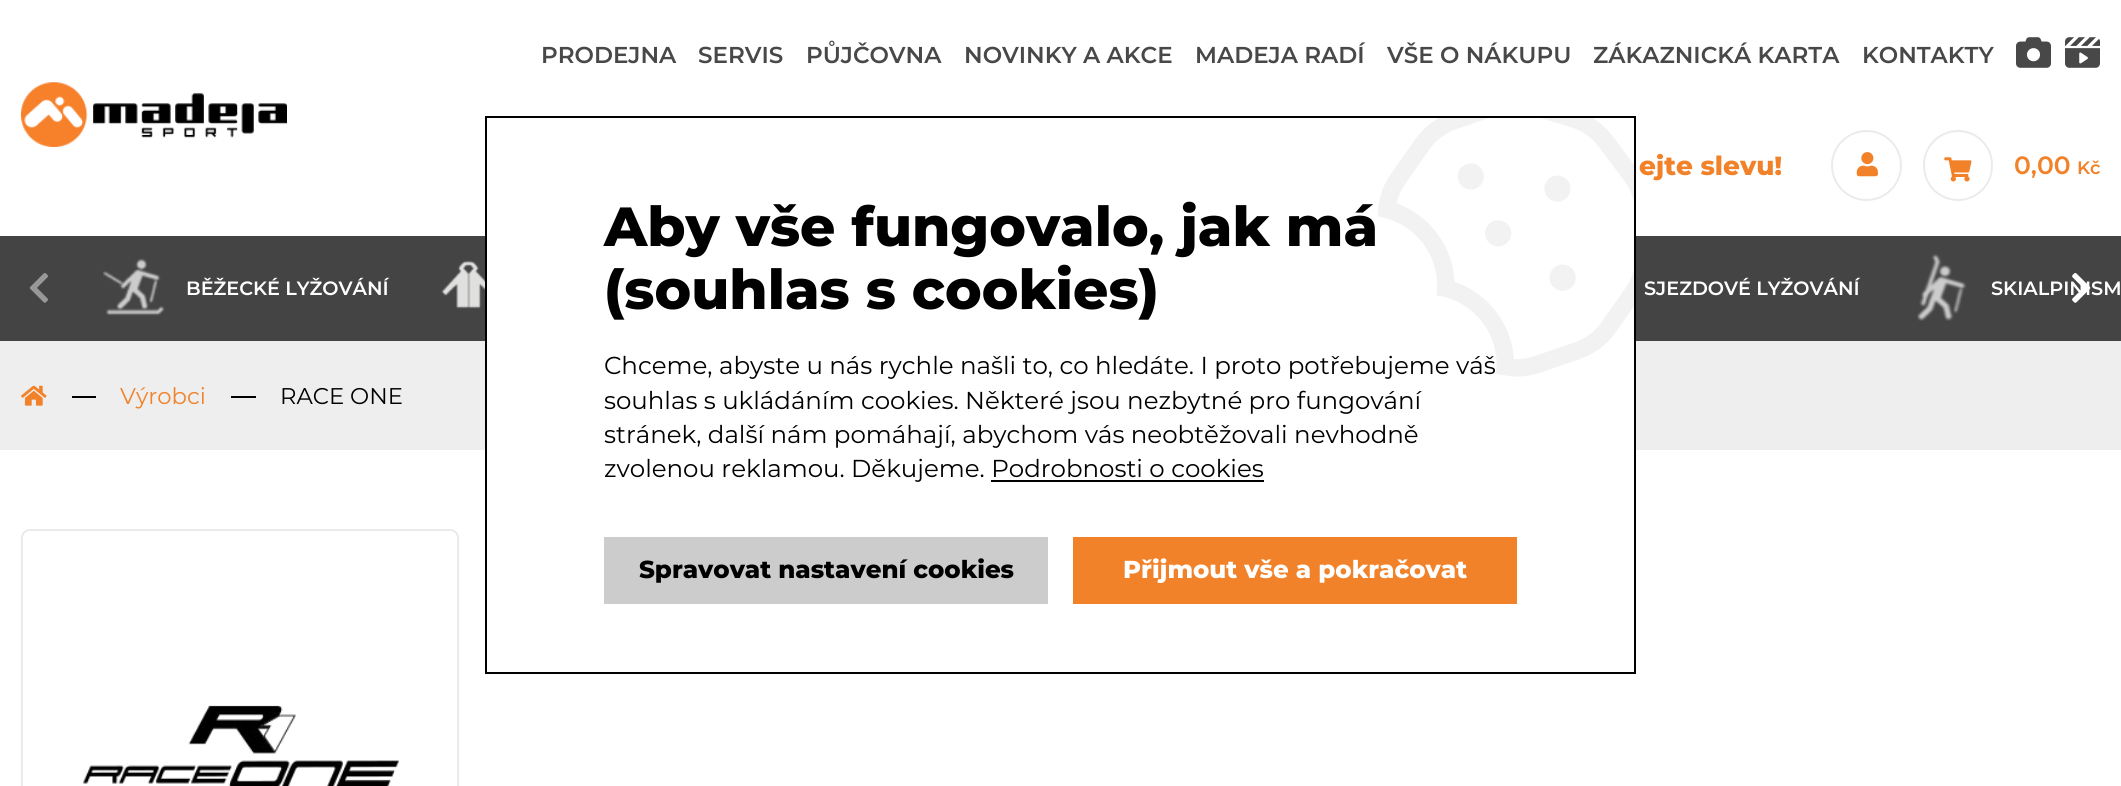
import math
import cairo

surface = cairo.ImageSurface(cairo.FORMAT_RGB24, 2121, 786)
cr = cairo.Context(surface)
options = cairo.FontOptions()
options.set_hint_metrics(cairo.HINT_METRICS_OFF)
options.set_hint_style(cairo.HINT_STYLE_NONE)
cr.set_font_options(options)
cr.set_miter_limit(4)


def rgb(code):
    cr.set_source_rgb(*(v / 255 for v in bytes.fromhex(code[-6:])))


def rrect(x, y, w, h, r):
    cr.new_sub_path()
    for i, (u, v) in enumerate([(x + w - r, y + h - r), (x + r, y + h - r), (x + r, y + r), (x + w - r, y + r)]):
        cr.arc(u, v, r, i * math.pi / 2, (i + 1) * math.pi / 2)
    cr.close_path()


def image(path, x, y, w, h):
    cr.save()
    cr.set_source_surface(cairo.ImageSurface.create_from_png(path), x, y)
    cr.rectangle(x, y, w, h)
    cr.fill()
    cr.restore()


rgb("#eeeeee")
cr.paint()
rgb("#ffffff")
cr.rectangle(0, 0, 2121, 236)
cr.fill()
image("img/1.png", 21, 82, 266, 65)
image("img/2.png", 2016, 37, 35, 31)
image("img/3.png", 2065, 37, 35, 31)
cr.arc(1866.5, 165.5, 34.5, 0, 2 * math.pi)
rgb("#ebebeb")
cr.stroke()
image("img/4.png", 1856, 152, 22, 25)
rrect(1924, 131, 68, 69, 34)
cr.stroke()
image("img/5.png", 1944, 157, 28, 25)
rgb("#454445")
cr.rectangle(0, 236, 2121, 105)
cr.fill()
image("img/6.png", 29, 273, 19, 30)
image("img/8.png", 103, 258, 62, 58)
image("img/9.png", 441, 260, 44, 49)
image("img/10.png", 1917, 254, 50, 67)
image("img/11.png", 21, 385, 26, 21)
for x, y, w, h, color in [
    (72, 396, 24, 2, "#000000"),
    (231, 396, 25, 2, "#000000"),
    (487, 236, 1147, 214, "#ffffff"),
    (0, 450, 2121, 336, "#ffffff"),
]:
    rgb(color)
    cr.rectangle(x, y, w, h)
    cr.fill()
cr.rectangle(486, 117, 1149, 556)
rgb("#000000")
cr.stroke()
image("img/12.png", 1378, 118, 256, 259)
for x, y, w, h, color in [
    (991, 480, 273, 2, "#000000"),
    (604, 537, 444, 67, "#cccccc"),
    (1073, 537, 444, 67, "#f18229"),
]:
    rgb(color)
    cr.rectangle(x, y, w, h)
    cr.fill()
rrect(22, 530, 436, 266, 8)
rgb("#eaeaea")
cr.stroke()
image("img/13.png", 83, 705, 316, 81)
cr.select_font_face("Montserrat SemiBold")
cr.set_font_size(23)
rgb("#484848")
for x, y, s in [
    (541, 63, "PRODEJNA"),
    (698, 63, "SERVIS"),
    (806, 63, "PŮJČOVNA"),
    (964, 63, "NOVINKY A AKCE"),
    (1195, 63, "MADEJA RADÍ"),
    (1387, 63, "VŠE O NÁKUPU"),
    (1593, 63, "ZÁKAZNICKÁ KARTA"),
    (1862, 63, "KONTAKTY"),
]:
    cr.move_to(x, y)
    cr.show_text(s)
cr.select_font_face("Montserrat ExtraBold")
cr.set_font_size(26.25)
rgb("#f18229")
cr.move_to(1639, 175)
cr.show_text("ejte slevu!")
cr.select_font_face("Montserrat SemiBold")
cr.set_font_size(25)
cr.move_to(2014, 174)
cr.show_text("0,00")
cr.set_font_size(18)
cr.move_to(2077, 174)
cr.show_text("Kč")
cr.set_font_size(19.25)
rgb("#ffffff")
for x, y, s in [
    (186, 295, "BĚŽECKÉ LYŽOVÁNÍ"),
    (1644, 295, "SJEZDOVÉ LYŽOVÁNÍ"),
    (1991, 295, "SKIALPINISM"),
]:
    cr.move_to(x, y)
    cr.show_text(s)
image("img/7.png", 2072, 273, 19, 30)
cr.select_font_face("Montserrat")
cr.set_font_size(22.75)
rgb("#f18229")
cr.move_to(120, 404)
cr.show_text("Výrobci")
rgb("#000000")
cr.move_to(280, 404)
cr.show_text("RACE ONE")
cr.select_font_face("Montserrat ExtraBold")
cr.set_font_size(55.1)
cr.move_to(604, 246)
cr.show_text("Aby vše fungovalo, jak má")
cr.move_to(604, 309)
cr.show_text("(souhlas s cookies)")
cr.select_font_face("Montserrat")
cr.set_font_size(24.5)
for x, y, s in [
    (604, 374, "Chceme, abyste u nás rychle našli to, co hledáte. I proto potřebujeme váš"),
    (604, 409, "souhlas s ukládáním cookies. Některé jsou nezbytné pro fungování"),
    (604, 443, "stránek, další nám pomáhají, abychom vás neobtěžovali nevhodně"),
    (604, 477, "zvolenou reklamou. Děkujeme. Podrobnosti o cookies"),
]:
    cr.move_to(x, y)
    cr.show_text(s)
cr.select_font_face("Montserrat ExtraBold")
cr.move_to(639, 578)
cr.show_text("Spravovat nastavení cookies")
rgb("#ffffff")
cr.move_to(1123, 578)
cr.show_text("Přijmout vše a pokračovat")
surface.write_to_png("page.png")
